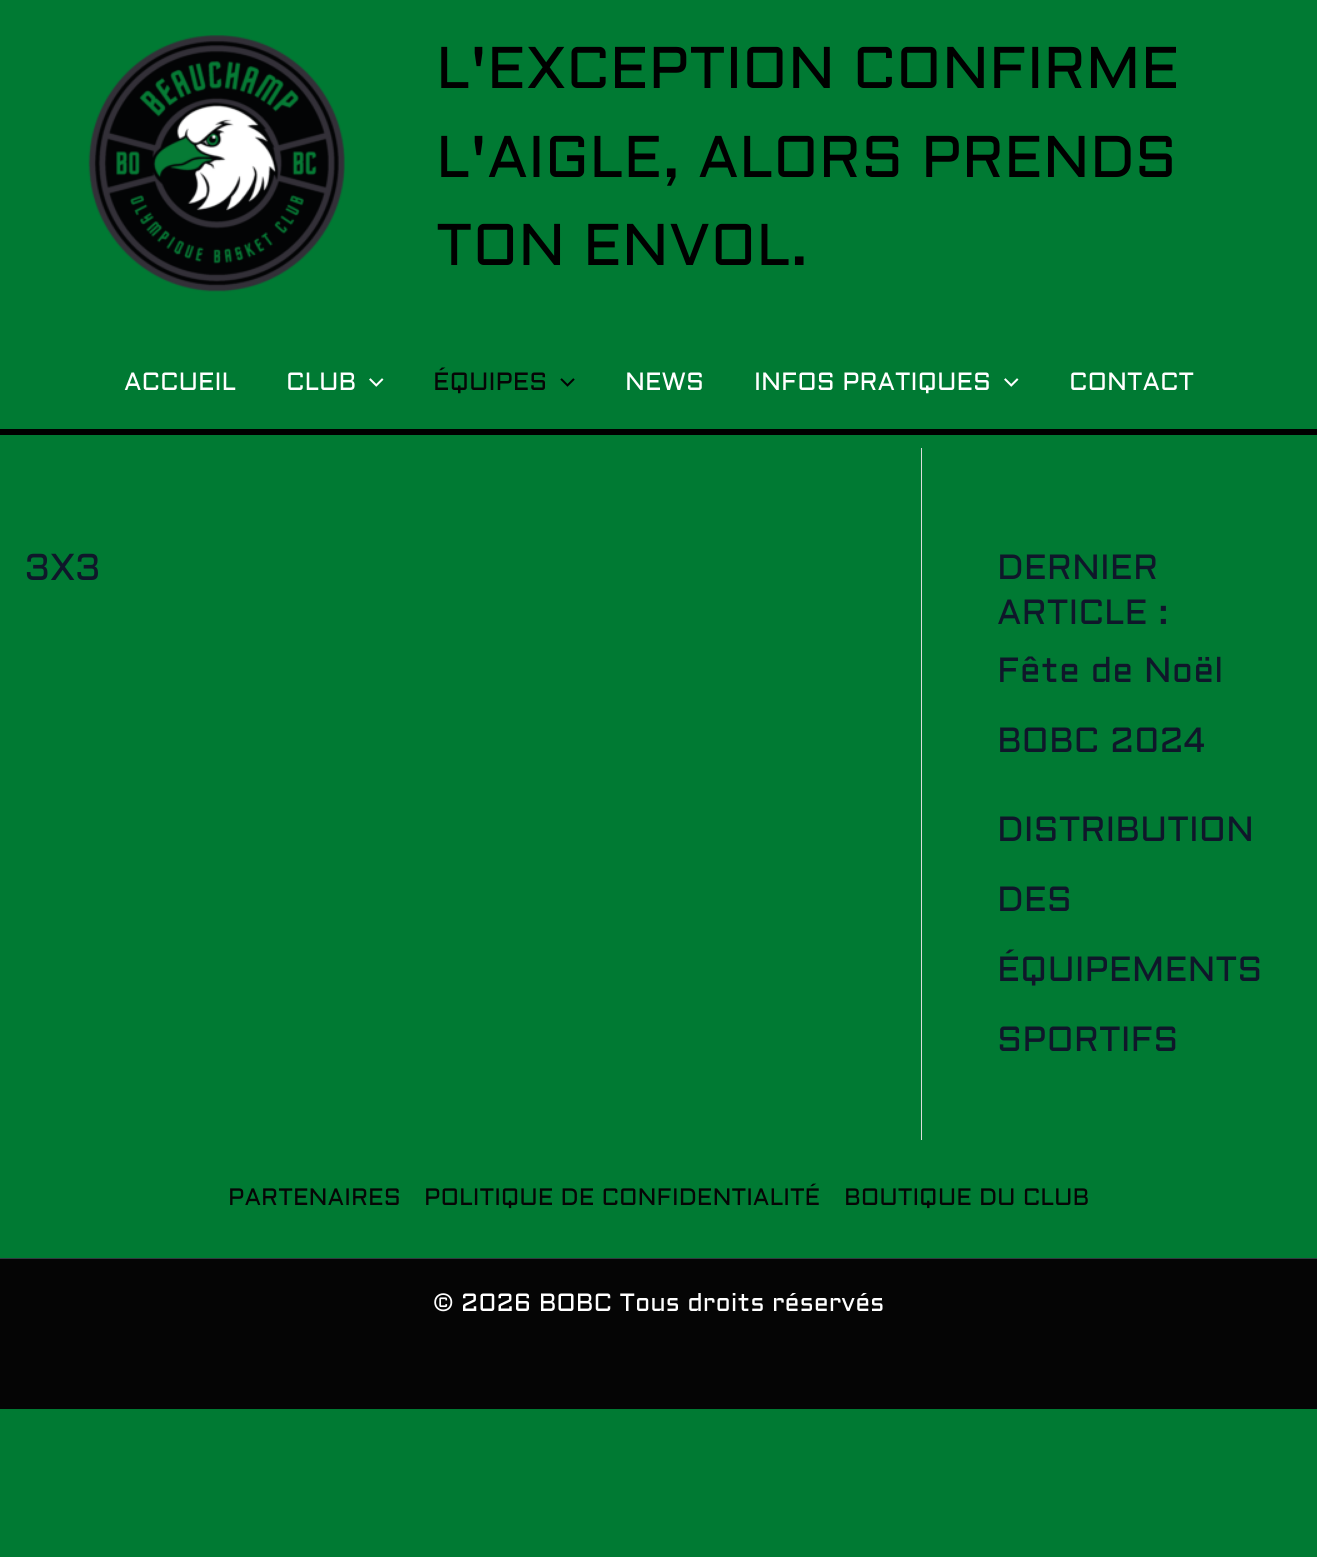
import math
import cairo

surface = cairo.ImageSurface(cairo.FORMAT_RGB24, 1317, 1557)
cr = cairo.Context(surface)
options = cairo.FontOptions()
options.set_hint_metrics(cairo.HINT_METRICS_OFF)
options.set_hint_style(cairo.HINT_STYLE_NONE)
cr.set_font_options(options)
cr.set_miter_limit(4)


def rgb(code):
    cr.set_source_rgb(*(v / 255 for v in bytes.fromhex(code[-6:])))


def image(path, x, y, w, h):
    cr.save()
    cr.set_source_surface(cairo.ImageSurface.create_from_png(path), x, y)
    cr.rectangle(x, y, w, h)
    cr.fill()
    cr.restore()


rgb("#007a33")
cr.paint()
image("img/1.png", 88, 35, 257, 257)
rgb("#000000")
cr.rectangle(0, 429, 1317, 6)
cr.fill()
image("img/2.png", 369, 378, 15, 9)
image("img/3.png", 560, 378, 15, 9)
image("img/2.png", 1004, 378, 15, 9)
for x, y, w, h, color in [
    (921, 448, 1, 692, "#dddddd"),
    (0, 1259, 1317, 150, "#050505"),
    (0, 1258, 1317, 1, "#2f3b40"),
]:
    rgb(color)
    cr.rectangle(x, y, w, h)
    cr.fill()
cr.select_font_face("Aldrich")
cr.set_font_size(58.75)
rgb("#000000")
for x, y, s in [
    (436, 88, "L'EXCEPTION CONFIRME"),
    (436, 177, "L'AIGLE, ALORS PRENDS"),
    (436, 265, "TON ENVOL."),
]:
    cr.move_to(x, y)
    cr.show_text(s)
cr.set_font_size(25)
rgb("#ffffff")
cr.move_to(124, 390)
cr.show_text("ACCUEIL")
cr.move_to(286, 390)
cr.show_text("CLUB")
rgb("#060606")
cr.move_to(433, 390)
cr.show_text("ÉQUIPES")
rgb("#ffffff")
for x, y, s in [
    (625, 390, "NEWS"),
    (754, 390, "INFOS PRATIQUES"),
    (1069, 390, "CONTACT"),
]:
    cr.move_to(x, y)
    cr.show_text(s)
cr.set_font_size(37.5)
rgb("#0f172a")
cr.move_to(25, 580)
cr.show_text("3X3")
cr.set_font_size(35)
for x, y, s in [
    (997, 579, "DERNIER"),
    (997, 624, "ARTICLE :"),
    (997, 682, "Fête de Noël"),
    (997, 752, "BOBC 2024"),
    (997, 841, "DISTRIBUTION"),
    (997, 911, "DES"),
    (997, 981, "ÉQUIPEMENTS"),
    (997, 1051, "SPORTIFS"),
]:
    cr.move_to(x, y)
    cr.show_text(s)
cr.set_font_size(23.75)
rgb("#060606")
for x, y, s in [
    (228, 1205, "PARTENAIRES"),
    (424, 1205, "POLITIQUE DE CONFIDENTIALITÉ"),
    (844, 1205, "BOUTIQUE DU CLUB"),
]:
    cr.move_to(x, y)
    cr.show_text(s)
cr.set_font_size(25)
rgb("#ffffff")
cr.move_to(433, 1311)
cr.show_text("© 2026 BOBC Tous droits réservés")
surface.write_to_png("page.png")
